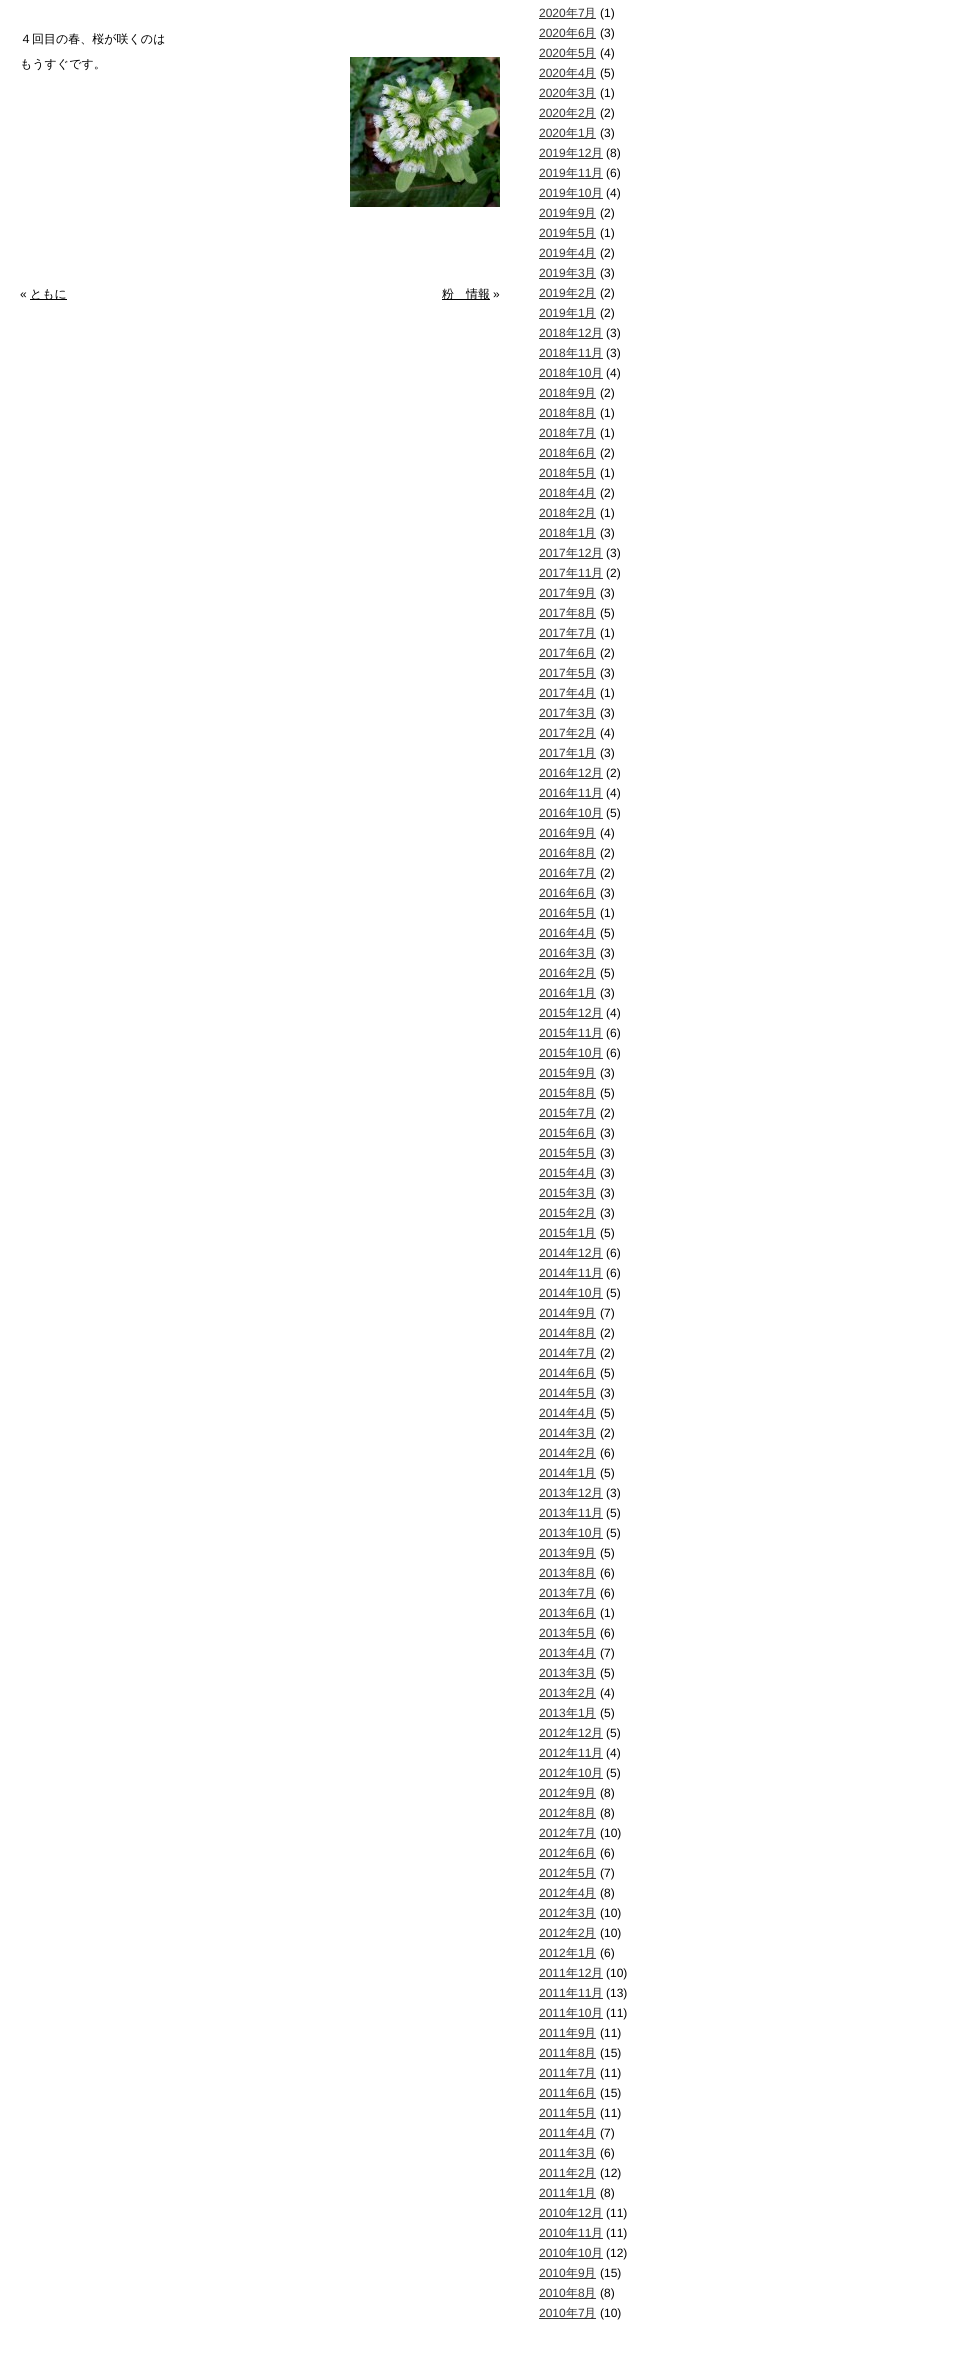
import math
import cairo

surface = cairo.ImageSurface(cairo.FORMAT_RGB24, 980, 2363)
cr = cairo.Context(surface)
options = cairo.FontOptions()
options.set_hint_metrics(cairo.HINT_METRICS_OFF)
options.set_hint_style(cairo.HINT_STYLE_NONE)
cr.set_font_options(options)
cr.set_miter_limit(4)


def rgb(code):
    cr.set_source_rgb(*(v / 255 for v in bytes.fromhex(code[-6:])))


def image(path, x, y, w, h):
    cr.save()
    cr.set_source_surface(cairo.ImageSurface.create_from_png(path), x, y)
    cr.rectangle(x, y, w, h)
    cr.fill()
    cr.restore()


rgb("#ffffff")
cr.paint()
image("img/1.png", 350, 57, 150, 150)
for x, y, w, h, color in [
    (30, 299, 37, 1, "#000000"),
    (442, 299, 48, 1, "#000000"),
    (539, 18, 57, 1, "#333333"),
    (539, 38, 57, 1, "#333333"),
    (539, 58, 57, 1, "#333333"),
    (539, 78, 57, 1, "#333333"),
    (539, 98, 57, 1, "#333333"),
    (539, 118, 57, 1, "#333333"),
    (539, 138, 57, 1, "#333333"),
    (539, 158, 64, 1, "#333333"),
    (539, 178, 64, 1, "#333333"),
    (539, 198, 64, 1, "#333333"),
    (539, 218, 57, 1, "#333333"),
    (539, 238, 57, 1, "#333333"),
    (539, 258, 57, 1, "#333333"),
    (539, 278, 57, 1, "#333333"),
    (539, 298, 57, 1, "#333333"),
    (539, 318, 57, 1, "#333333"),
    (539, 338, 64, 1, "#333333"),
    (539, 358, 64, 1, "#333333"),
    (539, 378, 64, 1, "#333333"),
    (539, 398, 57, 1, "#333333"),
    (539, 418, 57, 1, "#333333"),
    (539, 438, 57, 1, "#333333"),
    (539, 458, 57, 1, "#333333"),
    (539, 478, 57, 1, "#333333"),
    (539, 498, 57, 1, "#333333"),
    (539, 518, 57, 1, "#333333"),
    (539, 538, 57, 1, "#333333"),
    (539, 558, 64, 1, "#333333"),
    (539, 578, 64, 1, "#333333"),
    (539, 598, 57, 1, "#333333"),
    (539, 618, 57, 1, "#333333"),
    (539, 638, 57, 1, "#333333"),
    (539, 658, 57, 1, "#333333"),
    (539, 678, 57, 1, "#333333"),
    (539, 698, 57, 1, "#333333"),
    (539, 718, 57, 1, "#333333"),
    (539, 738, 57, 1, "#333333"),
    (539, 758, 57, 1, "#333333"),
    (539, 778, 64, 1, "#333333"),
    (539, 798, 64, 1, "#333333"),
    (539, 818, 64, 1, "#333333"),
    (539, 838, 57, 1, "#333333"),
    (539, 858, 57, 1, "#333333"),
    (539, 878, 57, 1, "#333333"),
    (539, 898, 57, 1, "#333333"),
    (539, 918, 57, 1, "#333333"),
    (539, 938, 57, 1, "#333333"),
    (539, 958, 57, 1, "#333333"),
    (539, 978, 57, 1, "#333333"),
    (539, 998, 57, 1, "#333333"),
    (539, 1018, 64, 1, "#333333"),
    (539, 1038, 64, 1, "#333333"),
    (539, 1058, 64, 1, "#333333"),
    (539, 1078, 57, 1, "#333333"),
    (539, 1098, 57, 1, "#333333"),
    (539, 1118, 57, 1, "#333333"),
    (539, 1138, 57, 1, "#333333"),
    (539, 1158, 57, 1, "#333333"),
    (539, 1178, 57, 1, "#333333"),
    (539, 1198, 57, 1, "#333333"),
    (539, 1218, 57, 1, "#333333"),
    (539, 1238, 57, 1, "#333333"),
    (539, 1258, 64, 1, "#333333"),
    (539, 1278, 64, 1, "#333333"),
    (539, 1298, 64, 1, "#333333"),
    (539, 1318, 57, 1, "#333333"),
    (539, 1338, 57, 1, "#333333"),
    (539, 1358, 57, 1, "#333333"),
    (539, 1378, 57, 1, "#333333"),
    (539, 1398, 57, 1, "#333333"),
    (539, 1418, 57, 1, "#333333"),
    (539, 1438, 57, 1, "#333333"),
    (539, 1458, 57, 1, "#333333"),
    (539, 1478, 57, 1, "#333333"),
    (539, 1498, 64, 1, "#333333"),
    (539, 1518, 64, 1, "#333333"),
    (539, 1538, 64, 1, "#333333"),
    (539, 1558, 57, 1, "#333333"),
    (539, 1578, 57, 1, "#333333"),
    (539, 1598, 57, 1, "#333333"),
    (539, 1618, 57, 1, "#333333"),
    (539, 1638, 57, 1, "#333333"),
    (539, 1658, 57, 1, "#333333"),
    (539, 1678, 57, 1, "#333333"),
    (539, 1698, 57, 1, "#333333"),
    (539, 1718, 57, 1, "#333333"),
    (539, 1738, 64, 1, "#333333"),
    (539, 1758, 64, 1, "#333333"),
    (539, 1778, 64, 1, "#333333"),
    (539, 1798, 57, 1, "#333333"),
    (539, 1818, 57, 1, "#333333"),
    (539, 1838, 57, 1, "#333333"),
    (539, 1858, 57, 1, "#333333"),
    (539, 1878, 57, 1, "#333333"),
    (539, 1898, 57, 1, "#333333"),
    (539, 1918, 57, 1, "#333333"),
    (539, 1938, 57, 1, "#333333"),
    (539, 1958, 57, 1, "#333333"),
    (539, 1978, 64, 1, "#333333"),
    (539, 1998, 64, 1, "#333333"),
    (539, 2018, 64, 1, "#333333"),
    (539, 2038, 57, 1, "#333333"),
    (539, 2058, 57, 1, "#333333"),
    (539, 2078, 57, 1, "#333333"),
    (539, 2098, 57, 1, "#333333"),
    (539, 2118, 57, 1, "#333333"),
    (539, 2138, 57, 1, "#333333"),
    (539, 2158, 57, 1, "#333333"),
    (539, 2178, 57, 1, "#333333"),
    (539, 2198, 57, 1, "#333333"),
    (539, 2218, 64, 1, "#333333"),
    (539, 2238, 64, 1, "#333333"),
    (539, 2258, 64, 1, "#333333"),
    (539, 2278, 57, 1, "#333333"),
    (539, 2298, 57, 1, "#333333"),
    (539, 2318, 57, 1, "#333333"),
]:
    rgb(color)
    cr.rectangle(x, y, w, h)
    cr.fill()
cr.select_font_face("WenQuanYi Zen Hei Medium")
cr.set_font_size(12)
rgb("#000000")
cr.move_to(20, 43)
cr.show_text("４回目の春、桜が咲くのは")
cr.move_to(20, 68)
cr.show_text("もうすぐです。")
cr.select_font_face("Liberation Sans")
cr.move_to(20, 298)
cr.show_text("«")
cr.select_font_face("WenQuanYi Zen Hei Medium")
cr.move_to(30, 298)
cr.show_text("ともに")
cr.move_to(442, 298)
cr.show_text("粉　情報")
cr.select_font_face("Liberation Sans")
cr.move_to(493, 298)
cr.show_text("»")
rgb("#333333")
cr.move_to(539, 17)
cr.show_text("2020")
cr.select_font_face("WenQuanYi Zen Hei Medium")
cr.move_to(566, 17)
cr.show_text("年")
cr.select_font_face("Liberation Sans")
cr.move_to(578, 17)
cr.show_text("7")
cr.select_font_face("WenQuanYi Zen Hei Medium")
cr.move_to(584, 17)
cr.show_text("月")
cr.select_font_face("Liberation Sans")
rgb("#000000")
cr.move_to(600, 17)
cr.show_text("(1)")
rgb("#333333")
cr.move_to(539, 37)
cr.show_text("2020")
cr.select_font_face("WenQuanYi Zen Hei Medium")
cr.move_to(566, 37)
cr.show_text("年")
cr.select_font_face("Liberation Sans")
cr.move_to(578, 37)
cr.show_text("6")
cr.select_font_face("WenQuanYi Zen Hei Medium")
cr.move_to(584, 37)
cr.show_text("月")
cr.select_font_face("Liberation Sans")
rgb("#000000")
cr.move_to(600, 37)
cr.show_text("(3)")
rgb("#333333")
cr.move_to(539, 57)
cr.show_text("2020")
cr.select_font_face("WenQuanYi Zen Hei Medium")
cr.move_to(566, 57)
cr.show_text("年")
cr.select_font_face("Liberation Sans")
cr.move_to(578, 57)
cr.show_text("5")
cr.select_font_face("WenQuanYi Zen Hei Medium")
cr.move_to(584, 57)
cr.show_text("月")
cr.select_font_face("Liberation Sans")
rgb("#000000")
cr.move_to(600, 57)
cr.show_text("(4)")
rgb("#333333")
cr.move_to(539, 77)
cr.show_text("2020")
cr.select_font_face("WenQuanYi Zen Hei Medium")
cr.move_to(566, 77)
cr.show_text("年")
cr.select_font_face("Liberation Sans")
cr.move_to(578, 77)
cr.show_text("4")
cr.select_font_face("WenQuanYi Zen Hei Medium")
cr.move_to(584, 77)
cr.show_text("月")
cr.select_font_face("Liberation Sans")
rgb("#000000")
cr.move_to(600, 77)
cr.show_text("(5)")
rgb("#333333")
cr.move_to(539, 97)
cr.show_text("2020")
cr.select_font_face("WenQuanYi Zen Hei Medium")
cr.move_to(566, 97)
cr.show_text("年")
cr.select_font_face("Liberation Sans")
cr.move_to(578, 97)
cr.show_text("3")
cr.select_font_face("WenQuanYi Zen Hei Medium")
cr.move_to(584, 97)
cr.show_text("月")
cr.select_font_face("Liberation Sans")
rgb("#000000")
cr.move_to(600, 97)
cr.show_text("(1)")
rgb("#333333")
cr.move_to(539, 117)
cr.show_text("2020")
cr.select_font_face("WenQuanYi Zen Hei Medium")
cr.move_to(566, 117)
cr.show_text("年")
cr.select_font_face("Liberation Sans")
cr.move_to(578, 117)
cr.show_text("2")
cr.select_font_face("WenQuanYi Zen Hei Medium")
cr.move_to(584, 117)
cr.show_text("月")
cr.select_font_face("Liberation Sans")
rgb("#000000")
cr.move_to(600, 117)
cr.show_text("(2)")
rgb("#333333")
cr.move_to(539, 137)
cr.show_text("2020")
cr.select_font_face("WenQuanYi Zen Hei Medium")
cr.move_to(566, 137)
cr.show_text("年")
cr.select_font_face("Liberation Sans")
cr.move_to(578, 137)
cr.show_text("1")
cr.select_font_face("WenQuanYi Zen Hei Medium")
cr.move_to(584, 137)
cr.show_text("月")
cr.select_font_face("Liberation Sans")
rgb("#000000")
cr.move_to(600, 137)
cr.show_text("(3)")
rgb("#333333")
cr.move_to(539, 157)
cr.show_text("2019")
cr.select_font_face("WenQuanYi Zen Hei Medium")
cr.move_to(566, 157)
cr.show_text("年")
cr.select_font_face("Liberation Sans")
cr.move_to(578, 157)
cr.show_text("12")
cr.select_font_face("WenQuanYi Zen Hei Medium")
cr.move_to(591, 157)
cr.show_text("月")
cr.select_font_face("Liberation Sans")
rgb("#000000")
cr.move_to(606, 157)
cr.show_text("(8)")
rgb("#333333")
cr.move_to(539, 177)
cr.show_text("2019")
cr.select_font_face("WenQuanYi Zen Hei Medium")
cr.move_to(566, 177)
cr.show_text("年")
cr.select_font_face("Liberation Sans")
cr.move_to(578, 177)
cr.show_text("11")
cr.select_font_face("WenQuanYi Zen Hei Medium")
cr.move_to(591, 177)
cr.show_text("月")
cr.select_font_face("Liberation Sans")
rgb("#000000")
cr.move_to(606, 177)
cr.show_text("(6)")
rgb("#333333")
cr.move_to(539, 197)
cr.show_text("2019")
cr.select_font_face("WenQuanYi Zen Hei Medium")
cr.move_to(566, 197)
cr.show_text("年")
cr.select_font_face("Liberation Sans")
cr.move_to(578, 197)
cr.show_text("10")
cr.select_font_face("WenQuanYi Zen Hei Medium")
cr.move_to(591, 197)
cr.show_text("月")
cr.select_font_face("Liberation Sans")
rgb("#000000")
cr.move_to(606, 197)
cr.show_text("(4)")
rgb("#333333")
cr.move_to(539, 217)
cr.show_text("2019")
cr.select_font_face("WenQuanYi Zen Hei Medium")
cr.move_to(566, 217)
cr.show_text("年")
cr.select_font_face("Liberation Sans")
cr.move_to(578, 217)
cr.show_text("9")
cr.select_font_face("WenQuanYi Zen Hei Medium")
cr.move_to(584, 217)
cr.show_text("月")
cr.select_font_face("Liberation Sans")
rgb("#000000")
cr.move_to(600, 217)
cr.show_text("(2)")
rgb("#333333")
cr.move_to(539, 237)
cr.show_text("2019")
cr.select_font_face("WenQuanYi Zen Hei Medium")
cr.move_to(566, 237)
cr.show_text("年")
cr.select_font_face("Liberation Sans")
cr.move_to(578, 237)
cr.show_text("5")
cr.select_font_face("WenQuanYi Zen Hei Medium")
cr.move_to(584, 237)
cr.show_text("月")
cr.select_font_face("Liberation Sans")
rgb("#000000")
cr.move_to(600, 237)
cr.show_text("(1)")
rgb("#333333")
cr.move_to(539, 257)
cr.show_text("2019")
cr.select_font_face("WenQuanYi Zen Hei Medium")
cr.move_to(566, 257)
cr.show_text("年")
cr.select_font_face("Liberation Sans")
cr.move_to(578, 257)
cr.show_text("4")
cr.select_font_face("WenQuanYi Zen Hei Medium")
cr.move_to(584, 257)
cr.show_text("月")
cr.select_font_face("Liberation Sans")
rgb("#000000")
cr.move_to(600, 257)
cr.show_text("(2)")
rgb("#333333")
cr.move_to(539, 277)
cr.show_text("2019")
cr.select_font_face("WenQuanYi Zen Hei Medium")
cr.move_to(566, 277)
cr.show_text("年")
cr.select_font_face("Liberation Sans")
cr.move_to(578, 277)
cr.show_text("3")
cr.select_font_face("WenQuanYi Zen Hei Medium")
cr.move_to(584, 277)
cr.show_text("月")
cr.select_font_face("Liberation Sans")
rgb("#000000")
cr.move_to(600, 277)
cr.show_text("(3)")
rgb("#333333")
cr.move_to(539, 297)
cr.show_text("2019")
cr.select_font_face("WenQuanYi Zen Hei Medium")
cr.move_to(566, 297)
cr.show_text("年")
cr.select_font_face("Liberation Sans")
cr.move_to(578, 297)
cr.show_text("2")
cr.select_font_face("WenQuanYi Zen Hei Medium")
cr.move_to(584, 297)
cr.show_text("月")
cr.select_font_face("Liberation Sans")
rgb("#000000")
cr.move_to(600, 297)
cr.show_text("(2)")
rgb("#333333")
cr.move_to(539, 317)
cr.show_text("2019")
cr.select_font_face("WenQuanYi Zen Hei Medium")
cr.move_to(566, 317)
cr.show_text("年")
cr.select_font_face("Liberation Sans")
cr.move_to(578, 317)
cr.show_text("1")
cr.select_font_face("WenQuanYi Zen Hei Medium")
cr.move_to(584, 317)
cr.show_text("月")
cr.select_font_face("Liberation Sans")
rgb("#000000")
cr.move_to(600, 317)
cr.show_text("(2)")
rgb("#333333")
cr.move_to(539, 337)
cr.show_text("2018")
cr.select_font_face("WenQuanYi Zen Hei Medium")
cr.move_to(566, 337)
cr.show_text("年")
cr.select_font_face("Liberation Sans")
cr.move_to(578, 337)
cr.show_text("12")
cr.select_font_face("WenQuanYi Zen Hei Medium")
cr.move_to(591, 337)
cr.show_text("月")
cr.select_font_face("Liberation Sans")
rgb("#000000")
cr.move_to(606, 337)
cr.show_text("(3)")
rgb("#333333")
cr.move_to(539, 357)
cr.show_text("2018")
cr.select_font_face("WenQuanYi Zen Hei Medium")
cr.move_to(566, 357)
cr.show_text("年")
cr.select_font_face("Liberation Sans")
cr.move_to(578, 357)
cr.show_text("11")
cr.select_font_face("WenQuanYi Zen Hei Medium")
cr.move_to(591, 357)
cr.show_text("月")
cr.select_font_face("Liberation Sans")
rgb("#000000")
cr.move_to(606, 357)
cr.show_text("(3)")
rgb("#333333")
cr.move_to(539, 377)
cr.show_text("2018")
cr.select_font_face("WenQuanYi Zen Hei Medium")
cr.move_to(566, 377)
cr.show_text("年")
cr.select_font_face("Liberation Sans")
cr.move_to(578, 377)
cr.show_text("10")
cr.select_font_face("WenQuanYi Zen Hei Medium")
cr.move_to(591, 377)
cr.show_text("月")
cr.select_font_face("Liberation Sans")
rgb("#000000")
cr.move_to(606, 377)
cr.show_text("(4)")
rgb("#333333")
cr.move_to(539, 397)
cr.show_text("2018")
cr.select_font_face("WenQuanYi Zen Hei Medium")
cr.move_to(566, 397)
cr.show_text("年")
cr.select_font_face("Liberation Sans")
cr.move_to(578, 397)
cr.show_text("9")
cr.select_font_face("WenQuanYi Zen Hei Medium")
cr.move_to(584, 397)
cr.show_text("月")
cr.select_font_face("Liberation Sans")
rgb("#000000")
cr.move_to(600, 397)
cr.show_text("(2)")
rgb("#333333")
cr.move_to(539, 417)
cr.show_text("2018")
cr.select_font_face("WenQuanYi Zen Hei Medium")
cr.move_to(566, 417)
cr.show_text("年")
cr.select_font_face("Liberation Sans")
cr.move_to(578, 417)
cr.show_text("8")
cr.select_font_face("WenQuanYi Zen Hei Medium")
cr.move_to(584, 417)
cr.show_text("月")
cr.select_font_face("Liberation Sans")
rgb("#000000")
cr.move_to(600, 417)
cr.show_text("(1)")
rgb("#333333")
cr.move_to(539, 437)
cr.show_text("2018")
cr.select_font_face("WenQuanYi Zen Hei Medium")
cr.move_to(566, 437)
cr.show_text("年")
cr.select_font_face("Liberation Sans")
cr.move_to(578, 437)
cr.show_text("7")
cr.select_font_face("WenQuanYi Zen Hei Medium")
cr.move_to(584, 437)
cr.show_text("月")
cr.select_font_face("Liberation Sans")
rgb("#000000")
cr.move_to(600, 437)
cr.show_text("(1)")
rgb("#333333")
cr.move_to(539, 457)
cr.show_text("2018")
cr.select_font_face("WenQuanYi Zen Hei Medium")
cr.move_to(566, 457)
cr.show_text("年")
cr.select_font_face("Liberation Sans")
cr.move_to(578, 457)
cr.show_text("6")
cr.select_font_face("WenQuanYi Zen Hei Medium")
cr.move_to(584, 457)
cr.show_text("月")
cr.select_font_face("Liberation Sans")
rgb("#000000")
cr.move_to(600, 457)
cr.show_text("(2)")
rgb("#333333")
cr.move_to(539, 477)
cr.show_text("2018")
cr.select_font_face("WenQuanYi Zen Hei Medium")
cr.move_to(566, 477)
cr.show_text("年")
cr.select_font_face("Liberation Sans")
cr.move_to(578, 477)
cr.show_text("5")
cr.select_font_face("WenQuanYi Zen Hei Medium")
cr.move_to(584, 477)
cr.show_text("月")
cr.select_font_face("Liberation Sans")
rgb("#000000")
cr.move_to(600, 477)
cr.show_text("(1)")
rgb("#333333")
cr.move_to(539, 497)
cr.show_text("2018")
cr.select_font_face("WenQuanYi Zen Hei Medium")
cr.move_to(566, 497)
cr.show_text("年")
cr.select_font_face("Liberation Sans")
cr.move_to(578, 497)
cr.show_text("4")
cr.select_font_face("WenQuanYi Zen Hei Medium")
cr.move_to(584, 497)
cr.show_text("月")
cr.select_font_face("Liberation Sans")
rgb("#000000")
cr.move_to(600, 497)
cr.show_text("(2)")
rgb("#333333")
cr.move_to(539, 517)
cr.show_text("2018")
cr.select_font_face("WenQuanYi Zen Hei Medium")
cr.move_to(566, 517)
cr.show_text("年")
cr.select_font_face("Liberation Sans")
cr.move_to(578, 517)
cr.show_text("2")
cr.select_font_face("WenQuanYi Zen Hei Medium")
cr.move_to(584, 517)
cr.show_text("月")
cr.select_font_face("Liberation Sans")
rgb("#000000")
cr.move_to(600, 517)
cr.show_text("(1)")
rgb("#333333")
cr.move_to(539, 537)
cr.show_text("2018")
cr.select_font_face("WenQuanYi Zen Hei Medium")
cr.move_to(566, 537)
cr.show_text("年")
cr.select_font_face("Liberation Sans")
cr.move_to(578, 537)
cr.show_text("1")
cr.select_font_face("WenQuanYi Zen Hei Medium")
cr.move_to(584, 537)
cr.show_text("月")
cr.select_font_face("Liberation Sans")
rgb("#000000")
cr.move_to(600, 537)
cr.show_text("(3)")
rgb("#333333")
cr.move_to(539, 557)
cr.show_text("2017")
cr.select_font_face("WenQuanYi Zen Hei Medium")
cr.move_to(566, 557)
cr.show_text("年")
cr.select_font_face("Liberation Sans")
cr.move_to(578, 557)
cr.show_text("12")
cr.select_font_face("WenQuanYi Zen Hei Medium")
cr.move_to(591, 557)
cr.show_text("月")
cr.select_font_face("Liberation Sans")
rgb("#000000")
cr.move_to(606, 557)
cr.show_text("(3)")
rgb("#333333")
cr.move_to(539, 577)
cr.show_text("2017")
cr.select_font_face("WenQuanYi Zen Hei Medium")
cr.move_to(566, 577)
cr.show_text("年")
cr.select_font_face("Liberation Sans")
cr.move_to(578, 577)
cr.show_text("11")
cr.select_font_face("WenQuanYi Zen Hei Medium")
cr.move_to(591, 577)
cr.show_text("月")
cr.select_font_face("Liberation Sans")
rgb("#000000")
cr.move_to(606, 577)
cr.show_text("(2)")
rgb("#333333")
cr.move_to(539, 597)
cr.show_text("2017")
cr.select_font_face("WenQuanYi Zen Hei Medium")
cr.move_to(566, 597)
cr.show_text("年")
cr.select_font_face("Liberation Sans")
cr.move_to(578, 597)
cr.show_text("9")
cr.select_font_face("WenQuanYi Zen Hei Medium")
cr.move_to(584, 597)
cr.show_text("月")
cr.select_font_face("Liberation Sans")
rgb("#000000")
cr.move_to(600, 597)
cr.show_text("(3)")
rgb("#333333")
cr.move_to(539, 617)
cr.show_text("2017")
cr.select_font_face("WenQuanYi Zen Hei Medium")
cr.move_to(566, 617)
cr.show_text("年")
cr.select_font_face("Liberation Sans")
cr.move_to(578, 617)
cr.show_text("8")
cr.select_font_face("WenQuanYi Zen Hei Medium")
cr.move_to(584, 617)
cr.show_text("月")
cr.select_font_face("Liberation Sans")
rgb("#000000")
cr.move_to(600, 617)
cr.show_text("(5)")
rgb("#333333")
cr.move_to(539, 637)
cr.show_text("2017")
cr.select_font_face("WenQuanYi Zen Hei Medium")
cr.move_to(566, 637)
cr.show_text("年")
cr.select_font_face("Liberation Sans")
cr.move_to(578, 637)
cr.show_text("7")
cr.select_font_face("WenQuanYi Zen Hei Medium")
cr.move_to(584, 637)
cr.show_text("月")
cr.select_font_face("Liberation Sans")
rgb("#000000")
cr.move_to(600, 637)
cr.show_text("(1)")
rgb("#333333")
cr.move_to(539, 657)
cr.show_text("2017")
cr.select_font_face("WenQuanYi Zen Hei Medium")
cr.move_to(566, 657)
cr.show_text("年")
cr.select_font_face("Liberation Sans")
cr.move_to(578, 657)
cr.show_text("6")
cr.select_font_face("WenQuanYi Zen Hei Medium")
cr.move_to(584, 657)
cr.show_text("月")
cr.select_font_face("Liberation Sans")
rgb("#000000")
cr.move_to(600, 657)
cr.show_text("(2)")
rgb("#333333")
cr.move_to(539, 677)
cr.show_text("2017")
cr.select_font_face("WenQuanYi Zen Hei Medium")
cr.move_to(566, 677)
cr.show_text("年")
cr.select_font_face("Liberation Sans")
cr.move_to(578, 677)
cr.show_text("5")
cr.select_font_face("WenQuanYi Zen Hei Medium")
cr.move_to(584, 677)
cr.show_text("月")
cr.select_font_face("Liberation Sans")
rgb("#000000")
cr.move_to(600, 677)
cr.show_text("(3)")
rgb("#333333")
cr.move_to(539, 697)
cr.show_text("2017")
cr.select_font_face("WenQuanYi Zen Hei Medium")
cr.move_to(566, 697)
cr.show_text("年")
cr.select_font_face("Liberation Sans")
cr.move_to(578, 697)
cr.show_text("4")
cr.select_font_face("WenQuanYi Zen Hei Medium")
cr.move_to(584, 697)
cr.show_text("月")
cr.select_font_face("Liberation Sans")
rgb("#000000")
cr.move_to(600, 697)
cr.show_text("(1)")
rgb("#333333")
cr.move_to(539, 717)
cr.show_text("2017")
cr.select_font_face("WenQuanYi Zen Hei Medium")
cr.move_to(566, 717)
cr.show_text("年")
cr.select_font_face("Liberation Sans")
cr.move_to(578, 717)
cr.show_text("3")
cr.select_font_face("WenQuanYi Zen Hei Medium")
cr.move_to(584, 717)
cr.show_text("月")
cr.select_font_face("Liberation Sans")
rgb("#000000")
cr.move_to(600, 717)
cr.show_text("(3)")
rgb("#333333")
cr.move_to(539, 737)
cr.show_text("2017")
cr.select_font_face("WenQuanYi Zen Hei Medium")
cr.move_to(566, 737)
cr.show_text("年")
cr.select_font_face("Liberation Sans")
cr.move_to(578, 737)
cr.show_text("2")
cr.select_font_face("WenQuanYi Zen Hei Medium")
cr.move_to(584, 737)
cr.show_text("月")
cr.select_font_face("Liberation Sans")
rgb("#000000")
cr.move_to(600, 737)
cr.show_text("(4)")
rgb("#333333")
cr.move_to(539, 757)
cr.show_text("2017")
cr.select_font_face("WenQuanYi Zen Hei Medium")
cr.move_to(566, 757)
cr.show_text("年")
cr.select_font_face("Liberation Sans")
cr.move_to(578, 757)
cr.show_text("1")
cr.select_font_face("WenQuanYi Zen Hei Medium")
cr.move_to(584, 757)
cr.show_text("月")
cr.select_font_face("Liberation Sans")
rgb("#000000")
cr.move_to(600, 757)
cr.show_text("(3)")
rgb("#333333")
cr.move_to(539, 777)
cr.show_text("2016")
cr.select_font_face("WenQuanYi Zen Hei Medium")
cr.move_to(566, 777)
cr.show_text("年")
cr.select_font_face("Liberation Sans")
cr.move_to(578, 777)
cr.show_text("12")
cr.select_font_face("WenQuanYi Zen Hei Medium")
cr.move_to(591, 777)
cr.show_text("月")
cr.select_font_face("Liberation Sans")
rgb("#000000")
cr.move_to(606, 777)
cr.show_text("(2)")
rgb("#333333")
cr.move_to(539, 797)
cr.show_text("2016")
cr.select_font_face("WenQuanYi Zen Hei Medium")
cr.move_to(566, 797)
cr.show_text("年")
cr.select_font_face("Liberation Sans")
cr.move_to(578, 797)
cr.show_text("11")
cr.select_font_face("WenQuanYi Zen Hei Medium")
cr.move_to(591, 797)
cr.show_text("月")
cr.select_font_face("Liberation Sans")
rgb("#000000")
cr.move_to(606, 797)
cr.show_text("(4)")
rgb("#333333")
cr.move_to(539, 817)
cr.show_text("2016")
cr.select_font_face("WenQuanYi Zen Hei Medium")
cr.move_to(566, 817)
cr.show_text("年")
cr.select_font_face("Liberation Sans")
cr.move_to(578, 817)
cr.show_text("10")
cr.select_font_face("WenQuanYi Zen Hei Medium")
cr.move_to(591, 817)
cr.show_text("月")
cr.select_font_face("Liberation Sans")
rgb("#000000")
cr.move_to(606, 817)
cr.show_text("(5)")
rgb("#333333")
cr.move_to(539, 837)
cr.show_text("2016")
cr.select_font_face("WenQuanYi Zen Hei Medium")
cr.move_to(566, 837)
cr.show_text("年")
cr.select_font_face("Liberation Sans")
cr.move_to(578, 837)
cr.show_text("9")
cr.select_font_face("WenQuanYi Zen Hei Medium")
cr.move_to(584, 837)
cr.show_text("月")
cr.select_font_face("Liberation Sans")
rgb("#000000")
cr.move_to(600, 837)
cr.show_text("(4)")
rgb("#333333")
cr.move_to(539, 857)
cr.show_text("2016")
cr.select_font_face("WenQuanYi Zen Hei Medium")
cr.move_to(566, 857)
cr.show_text("年")
cr.select_font_face("Liberation Sans")
cr.move_to(578, 857)
cr.show_text("8")
cr.select_font_face("WenQuanYi Zen Hei Medium")
cr.move_to(584, 857)
cr.show_text("月")
cr.select_font_face("Liberation Sans")
rgb("#000000")
cr.move_to(600, 857)
cr.show_text("(2)")
rgb("#333333")
cr.move_to(539, 877)
cr.show_text("2016")
cr.select_font_face("WenQuanYi Zen Hei Medium")
cr.move_to(566, 877)
cr.show_text("年")
cr.select_font_face("Liberation Sans")
cr.move_to(578, 877)
cr.show_text("7")
cr.select_font_face("WenQuanYi Zen Hei Medium")
cr.move_to(584, 877)
cr.show_text("月")
cr.select_font_face("Liberation Sans")
rgb("#000000")
cr.move_to(600, 877)
cr.show_text("(2)")
rgb("#333333")
cr.move_to(539, 897)
cr.show_text("2016")
cr.select_font_face("WenQuanYi Zen Hei Medium")
cr.move_to(566, 897)
cr.show_text("年")
cr.select_font_face("Liberation Sans")
cr.move_to(578, 897)
cr.show_text("6")
cr.select_font_face("WenQuanYi Zen Hei Medium")
cr.move_to(584, 897)
cr.show_text("月")
cr.select_font_face("Liberation Sans")
rgb("#000000")
cr.move_to(600, 897)
cr.show_text("(3)")
rgb("#333333")
cr.move_to(539, 917)
cr.show_text("2016")
cr.select_font_face("WenQuanYi Zen Hei Medium")
cr.move_to(566, 917)
cr.show_text("年")
cr.select_font_face("Liberation Sans")
cr.move_to(578, 917)
cr.show_text("5")
cr.select_font_face("WenQuanYi Zen Hei Medium")
cr.move_to(584, 917)
cr.show_text("月")
cr.select_font_face("Liberation Sans")
rgb("#000000")
cr.move_to(600, 917)
cr.show_text("(1)")
rgb("#333333")
cr.move_to(539, 937)
cr.show_text("2016")
cr.select_font_face("WenQuanYi Zen Hei Medium")
cr.move_to(566, 937)
cr.show_text("年")
cr.select_font_face("Liberation Sans")
cr.move_to(578, 937)
cr.show_text("4")
cr.select_font_face("WenQuanYi Zen Hei Medium")
cr.move_to(584, 937)
cr.show_text("月")
cr.select_font_face("Liberation Sans")
rgb("#000000")
cr.move_to(600, 937)
cr.show_text("(5)")
rgb("#333333")
cr.move_to(539, 957)
cr.show_text("2016")
cr.select_font_face("WenQuanYi Zen Hei Medium")
cr.move_to(566, 957)
cr.show_text("年")
cr.select_font_face("Liberation Sans")
cr.move_to(578, 957)
cr.show_text("3")
cr.select_font_face("WenQuanYi Zen Hei Medium")
cr.move_to(584, 957)
cr.show_text("月")
cr.select_font_face("Liberation Sans")
rgb("#000000")
cr.move_to(600, 957)
cr.show_text("(3)")
rgb("#333333")
cr.move_to(539, 977)
cr.show_text("2016")
cr.select_font_face("WenQuanYi Zen Hei Medium")
cr.move_to(566, 977)
cr.show_text("年")
cr.select_font_face("Liberation Sans")
cr.move_to(578, 977)
cr.show_text("2")
cr.select_font_face("WenQuanYi Zen Hei Medium")
cr.move_to(584, 977)
cr.show_text("月")
cr.select_font_face("Liberation Sans")
rgb("#000000")
cr.move_to(600, 977)
cr.show_text("(5)")
rgb("#333333")
cr.move_to(539, 997)
cr.show_text("2016")
cr.select_font_face("WenQuanYi Zen Hei Medium")
cr.move_to(566, 997)
cr.show_text("年")
cr.select_font_face("Liberation Sans")
cr.move_to(578, 997)
cr.show_text("1")
cr.select_font_face("WenQuanYi Zen Hei Medium")
cr.move_to(584, 997)
cr.show_text("月")
cr.select_font_face("Liberation Sans")
rgb("#000000")
cr.move_to(600, 997)
cr.show_text("(3)")
rgb("#333333")
cr.move_to(539, 1017)
cr.show_text("2015")
cr.select_font_face("WenQuanYi Zen Hei Medium")
cr.move_to(566, 1017)
cr.show_text("年")
cr.select_font_face("Liberation Sans")
cr.move_to(578, 1017)
cr.show_text("12")
cr.select_font_face("WenQuanYi Zen Hei Medium")
cr.move_to(591, 1017)
cr.show_text("月")
cr.select_font_face("Liberation Sans")
rgb("#000000")
cr.move_to(606, 1017)
cr.show_text("(4)")
rgb("#333333")
cr.move_to(539, 1037)
cr.show_text("2015")
cr.select_font_face("WenQuanYi Zen Hei Medium")
cr.move_to(566, 1037)
cr.show_text("年")
cr.select_font_face("Liberation Sans")
cr.move_to(578, 1037)
cr.show_text("11")
cr.select_font_face("WenQuanYi Zen Hei Medium")
cr.move_to(591, 1037)
cr.show_text("月")
cr.select_font_face("Liberation Sans")
rgb("#000000")
cr.move_to(606, 1037)
cr.show_text("(6)")
rgb("#333333")
cr.move_to(539, 1057)
cr.show_text("2015")
cr.select_font_face("WenQuanYi Zen Hei Medium")
cr.move_to(566, 1057)
cr.show_text("年")
cr.select_font_face("Liberation Sans")
cr.move_to(578, 1057)
cr.show_text("10")
cr.select_font_face("WenQuanYi Zen Hei Medium")
cr.move_to(591, 1057)
cr.show_text("月")
cr.select_font_face("Liberation Sans")
rgb("#000000")
cr.move_to(606, 1057)
cr.show_text("(6)")
rgb("#333333")
cr.move_to(539, 1077)
cr.show_text("2015")
cr.select_font_face("WenQuanYi Zen Hei Medium")
cr.move_to(566, 1077)
cr.show_text("年")
cr.select_font_face("Liberation Sans")
cr.move_to(578, 1077)
cr.show_text("9")
cr.select_font_face("WenQuanYi Zen Hei Medium")
cr.move_to(584, 1077)
cr.show_text("月")
cr.select_font_face("Liberation Sans")
rgb("#000000")
cr.move_to(600, 1077)
cr.show_text("(3)")
rgb("#333333")
cr.move_to(539, 1097)
cr.show_text("2015")
cr.select_font_face("WenQuanYi Zen Hei Medium")
cr.move_to(566, 1097)
cr.show_text("年")
cr.select_font_face("Liberation Sans")
cr.move_to(578, 1097)
cr.show_text("8")
cr.select_font_face("WenQuanYi Zen Hei Medium")
cr.move_to(584, 1097)
cr.show_text("月")
cr.select_font_face("Liberation Sans")
rgb("#000000")
cr.move_to(600, 1097)
cr.show_text("(5)")
rgb("#333333")
cr.move_to(539, 1117)
cr.show_text("2015")
cr.select_font_face("WenQuanYi Zen Hei Medium")
cr.move_to(566, 1117)
cr.show_text("年")
cr.select_font_face("Liberation Sans")
cr.move_to(578, 1117)
cr.show_text("7")
cr.select_font_face("WenQuanYi Zen Hei Medium")
cr.move_to(584, 1117)
cr.show_text("月")
cr.select_font_face("Liberation Sans")
rgb("#000000")
cr.move_to(600, 1117)
cr.show_text("(2)")
rgb("#333333")
cr.move_to(539, 1137)
cr.show_text("2015")
cr.select_font_face("WenQuanYi Zen Hei Medium")
cr.move_to(566, 1137)
cr.show_text("年")
cr.select_font_face("Liberation Sans")
cr.move_to(578, 1137)
cr.show_text("6")
cr.select_font_face("WenQuanYi Zen Hei Medium")
cr.move_to(584, 1137)
cr.show_text("月")
cr.select_font_face("Liberation Sans")
rgb("#000000")
cr.move_to(600, 1137)
cr.show_text("(3)")
rgb("#333333")
cr.move_to(539, 1157)
cr.show_text("2015")
cr.select_font_face("WenQuanYi Zen Hei Medium")
cr.move_to(566, 1157)
cr.show_text("年")
cr.select_font_face("Liberation Sans")
cr.move_to(578, 1157)
cr.show_text("5")
cr.select_font_face("WenQuanYi Zen Hei Medium")
cr.move_to(584, 1157)
cr.show_text("月")
cr.select_font_face("Liberation Sans")
rgb("#000000")
cr.move_to(600, 1157)
cr.show_text("(3)")
rgb("#333333")
cr.move_to(539, 1177)
cr.show_text("2015")
cr.select_font_face("WenQuanYi Zen Hei Medium")
cr.move_to(566, 1177)
cr.show_text("年")
cr.select_font_face("Liberation Sans")
cr.move_to(578, 1177)
cr.show_text("4")
cr.select_font_face("WenQuanYi Zen Hei Medium")
cr.move_to(584, 1177)
cr.show_text("月")
cr.select_font_face("Liberation Sans")
rgb("#000000")
cr.move_to(600, 1177)
cr.show_text("(3)")
rgb("#333333")
cr.move_to(539, 1197)
cr.show_text("2015")
cr.select_font_face("WenQuanYi Zen Hei Medium")
cr.move_to(566, 1197)
cr.show_text("年")
cr.select_font_face("Liberation Sans")
cr.move_to(578, 1197)
cr.show_text("3")
cr.select_font_face("WenQuanYi Zen Hei Medium")
cr.move_to(584, 1197)
cr.show_text("月")
cr.select_font_face("Liberation Sans")
rgb("#000000")
cr.move_to(600, 1197)
cr.show_text("(3)")
rgb("#333333")
cr.move_to(539, 1217)
cr.show_text("2015")
cr.select_font_face("WenQuanYi Zen Hei Medium")
cr.move_to(566, 1217)
cr.show_text("年")
cr.select_font_face("Liberation Sans")
cr.move_to(578, 1217)
cr.show_text("2")
cr.select_font_face("WenQuanYi Zen Hei Medium")
cr.move_to(584, 1217)
cr.show_text("月")
cr.select_font_face("Liberation Sans")
rgb("#000000")
cr.move_to(600, 1217)
cr.show_text("(3)")
rgb("#333333")
cr.move_to(539, 1237)
cr.show_text("2015")
cr.select_font_face("WenQuanYi Zen Hei Medium")
cr.move_to(566, 1237)
cr.show_text("年")
cr.select_font_face("Liberation Sans")
cr.move_to(578, 1237)
cr.show_text("1")
cr.select_font_face("WenQuanYi Zen Hei Medium")
cr.move_to(584, 1237)
cr.show_text("月")
cr.select_font_face("Liberation Sans")
rgb("#000000")
cr.move_to(600, 1237)
cr.show_text("(5)")
rgb("#333333")
cr.move_to(539, 1257)
cr.show_text("2014")
cr.select_font_face("WenQuanYi Zen Hei Medium")
cr.move_to(566, 1257)
cr.show_text("年")
cr.select_font_face("Liberation Sans")
cr.move_to(578, 1257)
cr.show_text("12")
cr.select_font_face("WenQuanYi Zen Hei Medium")
cr.move_to(591, 1257)
cr.show_text("月")
cr.select_font_face("Liberation Sans")
rgb("#000000")
cr.move_to(606, 1257)
cr.show_text("(6)")
rgb("#333333")
cr.move_to(539, 1277)
cr.show_text("2014")
cr.select_font_face("WenQuanYi Zen Hei Medium")
cr.move_to(566, 1277)
cr.show_text("年")
cr.select_font_face("Liberation Sans")
cr.move_to(578, 1277)
cr.show_text("11")
cr.select_font_face("WenQuanYi Zen Hei Medium")
cr.move_to(591, 1277)
cr.show_text("月")
cr.select_font_face("Liberation Sans")
rgb("#000000")
cr.move_to(606, 1277)
cr.show_text("(6)")
rgb("#333333")
cr.move_to(539, 1297)
cr.show_text("2014")
cr.select_font_face("WenQuanYi Zen Hei Medium")
cr.move_to(566, 1297)
cr.show_text("年")
cr.select_font_face("Liberation Sans")
cr.move_to(578, 1297)
cr.show_text("10")
cr.select_font_face("WenQuanYi Zen Hei Medium")
cr.move_to(591, 1297)
cr.show_text("月")
cr.select_font_face("Liberation Sans")
rgb("#000000")
cr.move_to(606, 1297)
cr.show_text("(5)")
rgb("#333333")
cr.move_to(539, 1317)
cr.show_text("2014")
cr.select_font_face("WenQuanYi Zen Hei Medium")
cr.move_to(566, 1317)
cr.show_text("年")
cr.select_font_face("Liberation Sans")
cr.move_to(578, 1317)
cr.show_text("9")
cr.select_font_face("WenQuanYi Zen Hei Medium")
cr.move_to(584, 1317)
cr.show_text("月")
cr.select_font_face("Liberation Sans")
rgb("#000000")
cr.move_to(600, 1317)
cr.show_text("(7)")
rgb("#333333")
cr.move_to(539, 1337)
cr.show_text("2014")
cr.select_font_face("WenQuanYi Zen Hei Medium")
cr.move_to(566, 1337)
cr.show_text("年")
cr.select_font_face("Liberation Sans")
cr.move_to(578, 1337)
cr.show_text("8")
cr.select_font_face("WenQuanYi Zen Hei Medium")
cr.move_to(584, 1337)
cr.show_text("月")
cr.select_font_face("Liberation Sans")
rgb("#000000")
cr.move_to(600, 1337)
cr.show_text("(2)")
rgb("#333333")
cr.move_to(539, 1357)
cr.show_text("2014")
cr.select_font_face("WenQuanYi Zen Hei Medium")
cr.move_to(566, 1357)
cr.show_text("年")
cr.select_font_face("Liberation Sans")
cr.move_to(578, 1357)
cr.show_text("7")
cr.select_font_face("WenQuanYi Zen Hei Medium")
cr.move_to(584, 1357)
cr.show_text("月")
cr.select_font_face("Liberation Sans")
rgb("#000000")
cr.move_to(600, 1357)
cr.show_text("(2)")
rgb("#333333")
cr.move_to(539, 1377)
cr.show_text("2014")
cr.select_font_face("WenQuanYi Zen Hei Medium")
cr.move_to(566, 1377)
cr.show_text("年")
cr.select_font_face("Liberation Sans")
cr.move_to(578, 1377)
cr.show_text("6")
cr.select_font_face("WenQuanYi Zen Hei Medium")
cr.move_to(584, 1377)
cr.show_text("月")
cr.select_font_face("Liberation Sans")
rgb("#000000")
cr.move_to(600, 1377)
cr.show_text("(5)")
rgb("#333333")
cr.move_to(539, 1397)
cr.show_text("2014")
cr.select_font_face("WenQuanYi Zen Hei Medium")
cr.move_to(566, 1397)
cr.show_text("年")
cr.select_font_face("Liberation Sans")
cr.move_to(578, 1397)
cr.show_text("5")
cr.select_font_face("WenQuanYi Zen Hei Medium")
cr.move_to(584, 1397)
cr.show_text("月")
cr.select_font_face("Liberation Sans")
rgb("#000000")
cr.move_to(600, 1397)
cr.show_text("(3)")
rgb("#333333")
cr.move_to(539, 1417)
cr.show_text("2014")
cr.select_font_face("WenQuanYi Zen Hei Medium")
cr.move_to(566, 1417)
cr.show_text("年")
cr.select_font_face("Liberation Sans")
cr.move_to(578, 1417)
cr.show_text("4")
cr.select_font_face("WenQuanYi Zen Hei Medium")
cr.move_to(584, 1417)
cr.show_text("月")
cr.select_font_face("Liberation Sans")
rgb("#000000")
cr.move_to(600, 1417)
cr.show_text("(5)")
rgb("#333333")
cr.move_to(539, 1437)
cr.show_text("2014")
cr.select_font_face("WenQuanYi Zen Hei Medium")
cr.move_to(566, 1437)
cr.show_text("年")
cr.select_font_face("Liberation Sans")
cr.move_to(578, 1437)
cr.show_text("3")
cr.select_font_face("WenQuanYi Zen Hei Medium")
cr.move_to(584, 1437)
cr.show_text("月")
cr.select_font_face("Liberation Sans")
rgb("#000000")
cr.move_to(600, 1437)
cr.show_text("(2)")
rgb("#333333")
cr.move_to(539, 1457)
cr.show_text("2014")
cr.select_font_face("WenQuanYi Zen Hei Medium")
cr.move_to(566, 1457)
cr.show_text("年")
cr.select_font_face("Liberation Sans")
cr.move_to(578, 1457)
cr.show_text("2")
cr.select_font_face("WenQuanYi Zen Hei Medium")
cr.move_to(584, 1457)
cr.show_text("月")
cr.select_font_face("Liberation Sans")
rgb("#000000")
cr.move_to(600, 1457)
cr.show_text("(6)")
rgb("#333333")
cr.move_to(539, 1477)
cr.show_text("2014")
cr.select_font_face("WenQuanYi Zen Hei Medium")
cr.move_to(566, 1477)
cr.show_text("年")
cr.select_font_face("Liberation Sans")
cr.move_to(578, 1477)
cr.show_text("1")
cr.select_font_face("WenQuanYi Zen Hei Medium")
cr.move_to(584, 1477)
cr.show_text("月")
cr.select_font_face("Liberation Sans")
rgb("#000000")
cr.move_to(600, 1477)
cr.show_text("(5)")
rgb("#333333")
cr.move_to(539, 1497)
cr.show_text("2013")
cr.select_font_face("WenQuanYi Zen Hei Medium")
cr.move_to(566, 1497)
cr.show_text("年")
cr.select_font_face("Liberation Sans")
cr.move_to(578, 1497)
cr.show_text("12")
cr.select_font_face("WenQuanYi Zen Hei Medium")
cr.move_to(591, 1497)
cr.show_text("月")
cr.select_font_face("Liberation Sans")
rgb("#000000")
cr.move_to(606, 1497)
cr.show_text("(3)")
rgb("#333333")
cr.move_to(539, 1517)
cr.show_text("2013")
cr.select_font_face("WenQuanYi Zen Hei Medium")
cr.move_to(566, 1517)
cr.show_text("年")
cr.select_font_face("Liberation Sans")
cr.move_to(578, 1517)
cr.show_text("11")
cr.select_font_face("WenQuanYi Zen Hei Medium")
cr.move_to(591, 1517)
cr.show_text("月")
cr.select_font_face("Liberation Sans")
rgb("#000000")
cr.move_to(606, 1517)
cr.show_text("(5)")
rgb("#333333")
cr.move_to(539, 1537)
cr.show_text("2013")
cr.select_font_face("WenQuanYi Zen Hei Medium")
cr.move_to(566, 1537)
cr.show_text("年")
cr.select_font_face("Liberation Sans")
cr.move_to(578, 1537)
cr.show_text("10")
cr.select_font_face("WenQuanYi Zen Hei Medium")
cr.move_to(591, 1537)
cr.show_text("月")
cr.select_font_face("Liberation Sans")
rgb("#000000")
cr.move_to(606, 1537)
cr.show_text("(5)")
rgb("#333333")
cr.move_to(539, 1557)
cr.show_text("2013")
cr.select_font_face("WenQuanYi Zen Hei Medium")
cr.move_to(566, 1557)
cr.show_text("年")
cr.select_font_face("Liberation Sans")
cr.move_to(578, 1557)
cr.show_text("9")
cr.select_font_face("WenQuanYi Zen Hei Medium")
cr.move_to(584, 1557)
cr.show_text("月")
cr.select_font_face("Liberation Sans")
rgb("#000000")
cr.move_to(600, 1557)
cr.show_text("(5)")
rgb("#333333")
cr.move_to(539, 1577)
cr.show_text("2013")
cr.select_font_face("WenQuanYi Zen Hei Medium")
cr.move_to(566, 1577)
cr.show_text("年")
cr.select_font_face("Liberation Sans")
cr.move_to(578, 1577)
cr.show_text("8")
cr.select_font_face("WenQuanYi Zen Hei Medium")
cr.move_to(584, 1577)
cr.show_text("月")
cr.select_font_face("Liberation Sans")
rgb("#000000")
cr.move_to(600, 1577)
cr.show_text("(6)")
rgb("#333333")
cr.move_to(539, 1597)
cr.show_text("2013")
cr.select_font_face("WenQuanYi Zen Hei Medium")
cr.move_to(566, 1597)
cr.show_text("年")
cr.select_font_face("Liberation Sans")
cr.move_to(578, 1597)
cr.show_text("7")
cr.select_font_face("WenQuanYi Zen Hei Medium")
cr.move_to(584, 1597)
cr.show_text("月")
cr.select_font_face("Liberation Sans")
rgb("#000000")
cr.move_to(600, 1597)
cr.show_text("(6)")
rgb("#333333")
cr.move_to(539, 1617)
cr.show_text("2013")
cr.select_font_face("WenQuanYi Zen Hei Medium")
cr.move_to(566, 1617)
cr.show_text("年")
cr.select_font_face("Liberation Sans")
cr.move_to(578, 1617)
cr.show_text("6")
cr.select_font_face("WenQuanYi Zen Hei Medium")
cr.move_to(584, 1617)
cr.show_text("月")
cr.select_font_face("Liberation Sans")
rgb("#000000")
cr.move_to(600, 1617)
cr.show_text("(1)")
rgb("#333333")
cr.move_to(539, 1637)
cr.show_text("2013")
cr.select_font_face("WenQuanYi Zen Hei Medium")
cr.move_to(566, 1637)
cr.show_text("年")
cr.select_font_face("Liberation Sans")
cr.move_to(578, 1637)
cr.show_text("5")
cr.select_font_face("WenQuanYi Zen Hei Medium")
cr.move_to(584, 1637)
cr.show_text("月")
cr.select_font_face("Liberation Sans")
rgb("#000000")
cr.move_to(600, 1637)
cr.show_text("(6)")
rgb("#333333")
cr.move_to(539, 1657)
cr.show_text("2013")
cr.select_font_face("WenQuanYi Zen Hei Medium")
cr.move_to(566, 1657)
cr.show_text("年")
cr.select_font_face("Liberation Sans")
cr.move_to(578, 1657)
cr.show_text("4")
cr.select_font_face("WenQuanYi Zen Hei Medium")
cr.move_to(584, 1657)
cr.show_text("月")
cr.select_font_face("Liberation Sans")
rgb("#000000")
cr.move_to(600, 1657)
cr.show_text("(7)")
rgb("#333333")
cr.move_to(539, 1677)
cr.show_text("2013")
cr.select_font_face("WenQuanYi Zen Hei Medium")
cr.move_to(566, 1677)
cr.show_text("年")
cr.select_font_face("Liberation Sans")
cr.move_to(578, 1677)
cr.show_text("3")
cr.select_font_face("WenQuanYi Zen Hei Medium")
cr.move_to(584, 1677)
cr.show_text("月")
cr.select_font_face("Liberation Sans")
rgb("#000000")
cr.move_to(600, 1677)
cr.show_text("(5)")
rgb("#333333")
cr.move_to(539, 1697)
cr.show_text("2013")
cr.select_font_face("WenQuanYi Zen Hei Medium")
cr.move_to(566, 1697)
cr.show_text("年")
cr.select_font_face("Liberation Sans")
cr.move_to(578, 1697)
cr.show_text("2")
cr.select_font_face("WenQuanYi Zen Hei Medium")
cr.move_to(584, 1697)
cr.show_text("月")
cr.select_font_face("Liberation Sans")
rgb("#000000")
cr.move_to(600, 1697)
cr.show_text("(4)")
rgb("#333333")
cr.move_to(539, 1717)
cr.show_text("2013")
cr.select_font_face("WenQuanYi Zen Hei Medium")
cr.move_to(566, 1717)
cr.show_text("年")
cr.select_font_face("Liberation Sans")
cr.move_to(578, 1717)
cr.show_text("1")
cr.select_font_face("WenQuanYi Zen Hei Medium")
cr.move_to(584, 1717)
cr.show_text("月")
cr.select_font_face("Liberation Sans")
rgb("#000000")
cr.move_to(600, 1717)
cr.show_text("(5)")
rgb("#333333")
cr.move_to(539, 1737)
cr.show_text("2012")
cr.select_font_face("WenQuanYi Zen Hei Medium")
cr.move_to(566, 1737)
cr.show_text("年")
cr.select_font_face("Liberation Sans")
cr.move_to(578, 1737)
cr.show_text("12")
cr.select_font_face("WenQuanYi Zen Hei Medium")
cr.move_to(591, 1737)
cr.show_text("月")
cr.select_font_face("Liberation Sans")
rgb("#000000")
cr.move_to(606, 1737)
cr.show_text("(5)")
rgb("#333333")
cr.move_to(539, 1757)
cr.show_text("2012")
cr.select_font_face("WenQuanYi Zen Hei Medium")
cr.move_to(566, 1757)
cr.show_text("年")
cr.select_font_face("Liberation Sans")
cr.move_to(578, 1757)
cr.show_text("11")
cr.select_font_face("WenQuanYi Zen Hei Medium")
cr.move_to(591, 1757)
cr.show_text("月")
cr.select_font_face("Liberation Sans")
rgb("#000000")
cr.move_to(606, 1757)
cr.show_text("(4)")
rgb("#333333")
cr.move_to(539, 1777)
cr.show_text("2012")
cr.select_font_face("WenQuanYi Zen Hei Medium")
cr.move_to(566, 1777)
cr.show_text("年")
cr.select_font_face("Liberation Sans")
cr.move_to(578, 1777)
cr.show_text("10")
cr.select_font_face("WenQuanYi Zen Hei Medium")
cr.move_to(591, 1777)
cr.show_text("月")
cr.select_font_face("Liberation Sans")
rgb("#000000")
cr.move_to(606, 1777)
cr.show_text("(5)")
rgb("#333333")
cr.move_to(539, 1797)
cr.show_text("2012")
cr.select_font_face("WenQuanYi Zen Hei Medium")
cr.move_to(566, 1797)
cr.show_text("年")
cr.select_font_face("Liberation Sans")
cr.move_to(578, 1797)
cr.show_text("9")
cr.select_font_face("WenQuanYi Zen Hei Medium")
cr.move_to(584, 1797)
cr.show_text("月")
cr.select_font_face("Liberation Sans")
rgb("#000000")
cr.move_to(600, 1797)
cr.show_text("(8)")
rgb("#333333")
cr.move_to(539, 1817)
cr.show_text("2012")
cr.select_font_face("WenQuanYi Zen Hei Medium")
cr.move_to(566, 1817)
cr.show_text("年")
cr.select_font_face("Liberation Sans")
cr.move_to(578, 1817)
cr.show_text("8")
cr.select_font_face("WenQuanYi Zen Hei Medium")
cr.move_to(584, 1817)
cr.show_text("月")
cr.select_font_face("Liberation Sans")
rgb("#000000")
cr.move_to(600, 1817)
cr.show_text("(8)")
rgb("#333333")
cr.move_to(539, 1837)
cr.show_text("2012")
cr.select_font_face("WenQuanYi Zen Hei Medium")
cr.move_to(566, 1837)
cr.show_text("年")
cr.select_font_face("Liberation Sans")
cr.move_to(578, 1837)
cr.show_text("7")
cr.select_font_face("WenQuanYi Zen Hei Medium")
cr.move_to(584, 1837)
cr.show_text("月")
cr.select_font_face("Liberation Sans")
rgb("#000000")
cr.move_to(600, 1837)
cr.show_text("(10)")
rgb("#333333")
cr.move_to(539, 1857)
cr.show_text("2012")
cr.select_font_face("WenQuanYi Zen Hei Medium")
cr.move_to(566, 1857)
cr.show_text("年")
cr.select_font_face("Liberation Sans")
cr.move_to(578, 1857)
cr.show_text("6")
cr.select_font_face("WenQuanYi Zen Hei Medium")
cr.move_to(584, 1857)
cr.show_text("月")
cr.select_font_face("Liberation Sans")
rgb("#000000")
cr.move_to(600, 1857)
cr.show_text("(6)")
rgb("#333333")
cr.move_to(539, 1877)
cr.show_text("2012")
cr.select_font_face("WenQuanYi Zen Hei Medium")
cr.move_to(566, 1877)
cr.show_text("年")
cr.select_font_face("Liberation Sans")
cr.move_to(578, 1877)
cr.show_text("5")
cr.select_font_face("WenQuanYi Zen Hei Medium")
cr.move_to(584, 1877)
cr.show_text("月")
cr.select_font_face("Liberation Sans")
rgb("#000000")
cr.move_to(600, 1877)
cr.show_text("(7)")
rgb("#333333")
cr.move_to(539, 1897)
cr.show_text("2012")
cr.select_font_face("WenQuanYi Zen Hei Medium")
cr.move_to(566, 1897)
cr.show_text("年")
cr.select_font_face("Liberation Sans")
cr.move_to(578, 1897)
cr.show_text("4")
cr.select_font_face("WenQuanYi Zen Hei Medium")
cr.move_to(584, 1897)
cr.show_text("月")
cr.select_font_face("Liberation Sans")
rgb("#000000")
cr.move_to(600, 1897)
cr.show_text("(8)")
rgb("#333333")
cr.move_to(539, 1917)
cr.show_text("2012")
cr.select_font_face("WenQuanYi Zen Hei Medium")
cr.move_to(566, 1917)
cr.show_text("年")
cr.select_font_face("Liberation Sans")
cr.move_to(578, 1917)
cr.show_text("3")
cr.select_font_face("WenQuanYi Zen Hei Medium")
cr.move_to(584, 1917)
cr.show_text("月")
cr.select_font_face("Liberation Sans")
rgb("#000000")
cr.move_to(600, 1917)
cr.show_text("(10)")
rgb("#333333")
cr.move_to(539, 1937)
cr.show_text("2012")
cr.select_font_face("WenQuanYi Zen Hei Medium")
cr.move_to(566, 1937)
cr.show_text("年")
cr.select_font_face("Liberation Sans")
cr.move_to(578, 1937)
cr.show_text("2")
cr.select_font_face("WenQuanYi Zen Hei Medium")
cr.move_to(584, 1937)
cr.show_text("月")
cr.select_font_face("Liberation Sans")
rgb("#000000")
cr.move_to(600, 1937)
cr.show_text("(10)")
rgb("#333333")
cr.move_to(539, 1957)
cr.show_text("2012")
cr.select_font_face("WenQuanYi Zen Hei Medium")
cr.move_to(566, 1957)
cr.show_text("年")
cr.select_font_face("Liberation Sans")
cr.move_to(578, 1957)
cr.show_text("1")
cr.select_font_face("WenQuanYi Zen Hei Medium")
cr.move_to(584, 1957)
cr.show_text("月")
cr.select_font_face("Liberation Sans")
rgb("#000000")
cr.move_to(600, 1957)
cr.show_text("(6)")
rgb("#333333")
cr.move_to(539, 1977)
cr.show_text("2011")
cr.select_font_face("WenQuanYi Zen Hei Medium")
cr.move_to(566, 1977)
cr.show_text("年")
cr.select_font_face("Liberation Sans")
cr.move_to(578, 1977)
cr.show_text("12")
cr.select_font_face("WenQuanYi Zen Hei Medium")
cr.move_to(591, 1977)
cr.show_text("月")
cr.select_font_face("Liberation Sans")
rgb("#000000")
cr.move_to(606, 1977)
cr.show_text("(10)")
rgb("#333333")
cr.move_to(539, 1997)
cr.show_text("2011")
cr.select_font_face("WenQuanYi Zen Hei Medium")
cr.move_to(566, 1997)
cr.show_text("年")
cr.select_font_face("Liberation Sans")
cr.move_to(578, 1997)
cr.show_text("11")
cr.select_font_face("WenQuanYi Zen Hei Medium")
cr.move_to(591, 1997)
cr.show_text("月")
cr.select_font_face("Liberation Sans")
rgb("#000000")
cr.move_to(606, 1997)
cr.show_text("(13)")
rgb("#333333")
cr.move_to(539, 2017)
cr.show_text("2011")
cr.select_font_face("WenQuanYi Zen Hei Medium")
cr.move_to(566, 2017)
cr.show_text("年")
cr.select_font_face("Liberation Sans")
cr.move_to(578, 2017)
cr.show_text("10")
cr.select_font_face("WenQuanYi Zen Hei Medium")
cr.move_to(591, 2017)
cr.show_text("月")
cr.select_font_face("Liberation Sans")
rgb("#000000")
cr.move_to(606, 2017)
cr.show_text("(11)")
rgb("#333333")
cr.move_to(539, 2037)
cr.show_text("2011")
cr.select_font_face("WenQuanYi Zen Hei Medium")
cr.move_to(566, 2037)
cr.show_text("年")
cr.select_font_face("Liberation Sans")
cr.move_to(578, 2037)
cr.show_text("9")
cr.select_font_face("WenQuanYi Zen Hei Medium")
cr.move_to(584, 2037)
cr.show_text("月")
cr.select_font_face("Liberation Sans")
rgb("#000000")
cr.move_to(600, 2037)
cr.show_text("(11)")
rgb("#333333")
cr.move_to(539, 2057)
cr.show_text("2011")
cr.select_font_face("WenQuanYi Zen Hei Medium")
cr.move_to(566, 2057)
cr.show_text("年")
cr.select_font_face("Liberation Sans")
cr.move_to(578, 2057)
cr.show_text("8")
cr.select_font_face("WenQuanYi Zen Hei Medium")
cr.move_to(584, 2057)
cr.show_text("月")
cr.select_font_face("Liberation Sans")
rgb("#000000")
cr.move_to(600, 2057)
cr.show_text("(15)")
rgb("#333333")
cr.move_to(539, 2077)
cr.show_text("2011")
cr.select_font_face("WenQuanYi Zen Hei Medium")
cr.move_to(566, 2077)
cr.show_text("年")
cr.select_font_face("Liberation Sans")
cr.move_to(578, 2077)
cr.show_text("7")
cr.select_font_face("WenQuanYi Zen Hei Medium")
cr.move_to(584, 2077)
cr.show_text("月")
cr.select_font_face("Liberation Sans")
rgb("#000000")
cr.move_to(600, 2077)
cr.show_text("(11)")
rgb("#333333")
cr.move_to(539, 2097)
cr.show_text("2011")
cr.select_font_face("WenQuanYi Zen Hei Medium")
cr.move_to(566, 2097)
cr.show_text("年")
cr.select_font_face("Liberation Sans")
cr.move_to(578, 2097)
cr.show_text("6")
cr.select_font_face("WenQuanYi Zen Hei Medium")
cr.move_to(584, 2097)
cr.show_text("月")
cr.select_font_face("Liberation Sans")
rgb("#000000")
cr.move_to(600, 2097)
cr.show_text("(15)")
rgb("#333333")
cr.move_to(539, 2117)
cr.show_text("2011")
cr.select_font_face("WenQuanYi Zen Hei Medium")
cr.move_to(566, 2117)
cr.show_text("年")
cr.select_font_face("Liberation Sans")
cr.move_to(578, 2117)
cr.show_text("5")
cr.select_font_face("WenQuanYi Zen Hei Medium")
cr.move_to(584, 2117)
cr.show_text("月")
cr.select_font_face("Liberation Sans")
rgb("#000000")
cr.move_to(600, 2117)
cr.show_text("(11)")
rgb("#333333")
cr.move_to(539, 2137)
cr.show_text("2011")
cr.select_font_face("WenQuanYi Zen Hei Medium")
cr.move_to(566, 2137)
cr.show_text("年")
cr.select_font_face("Liberation Sans")
cr.move_to(578, 2137)
cr.show_text("4")
cr.select_font_face("WenQuanYi Zen Hei Medium")
cr.move_to(584, 2137)
cr.show_text("月")
cr.select_font_face("Liberation Sans")
rgb("#000000")
cr.move_to(600, 2137)
cr.show_text("(7)")
rgb("#333333")
cr.move_to(539, 2157)
cr.show_text("2011")
cr.select_font_face("WenQuanYi Zen Hei Medium")
cr.move_to(566, 2157)
cr.show_text("年")
cr.select_font_face("Liberation Sans")
cr.move_to(578, 2157)
cr.show_text("3")
cr.select_font_face("WenQuanYi Zen Hei Medium")
cr.move_to(584, 2157)
cr.show_text("月")
cr.select_font_face("Liberation Sans")
rgb("#000000")
cr.move_to(600, 2157)
cr.show_text("(6)")
rgb("#333333")
cr.move_to(539, 2177)
cr.show_text("2011")
cr.select_font_face("WenQuanYi Zen Hei Medium")
cr.move_to(566, 2177)
cr.show_text("年")
cr.select_font_face("Liberation Sans")
cr.move_to(578, 2177)
cr.show_text("2")
cr.select_font_face("WenQuanYi Zen Hei Medium")
cr.move_to(584, 2177)
cr.show_text("月")
cr.select_font_face("Liberation Sans")
rgb("#000000")
cr.move_to(600, 2177)
cr.show_text("(12)")
rgb("#333333")
cr.move_to(539, 2197)
cr.show_text("2011")
cr.select_font_face("WenQuanYi Zen Hei Medium")
cr.move_to(566, 2197)
cr.show_text("年")
cr.select_font_face("Liberation Sans")
cr.move_to(578, 2197)
cr.show_text("1")
cr.select_font_face("WenQuanYi Zen Hei Medium")
cr.move_to(584, 2197)
cr.show_text("月")
cr.select_font_face("Liberation Sans")
rgb("#000000")
cr.move_to(600, 2197)
cr.show_text("(8)")
rgb("#333333")
cr.move_to(539, 2217)
cr.show_text("2010")
cr.select_font_face("WenQuanYi Zen Hei Medium")
cr.move_to(566, 2217)
cr.show_text("年")
cr.select_font_face("Liberation Sans")
cr.move_to(578, 2217)
cr.show_text("12")
cr.select_font_face("WenQuanYi Zen Hei Medium")
cr.move_to(591, 2217)
cr.show_text("月")
cr.select_font_face("Liberation Sans")
rgb("#000000")
cr.move_to(606, 2217)
cr.show_text("(11)")
rgb("#333333")
cr.move_to(539, 2237)
cr.show_text("2010")
cr.select_font_face("WenQuanYi Zen Hei Medium")
cr.move_to(566, 2237)
cr.show_text("年")
cr.select_font_face("Liberation Sans")
cr.move_to(578, 2237)
cr.show_text("11")
cr.select_font_face("WenQuanYi Zen Hei Medium")
cr.move_to(591, 2237)
cr.show_text("月")
cr.select_font_face("Liberation Sans")
rgb("#000000")
cr.move_to(606, 2237)
cr.show_text("(11)")
rgb("#333333")
cr.move_to(539, 2257)
cr.show_text("2010")
cr.select_font_face("WenQuanYi Zen Hei Medium")
cr.move_to(566, 2257)
cr.show_text("年")
cr.select_font_face("Liberation Sans")
cr.move_to(578, 2257)
cr.show_text("10")
cr.select_font_face("WenQuanYi Zen Hei Medium")
cr.move_to(591, 2257)
cr.show_text("月")
cr.select_font_face("Liberation Sans")
rgb("#000000")
cr.move_to(606, 2257)
cr.show_text("(12)")
rgb("#333333")
cr.move_to(539, 2277)
cr.show_text("2010")
cr.select_font_face("WenQuanYi Zen Hei Medium")
cr.move_to(566, 2277)
cr.show_text("年")
cr.select_font_face("Liberation Sans")
cr.move_to(578, 2277)
cr.show_text("9")
cr.select_font_face("WenQuanYi Zen Hei Medium")
cr.move_to(584, 2277)
cr.show_text("月")
cr.select_font_face("Liberation Sans")
rgb("#000000")
cr.move_to(600, 2277)
cr.show_text("(15)")
rgb("#333333")
cr.move_to(539, 2297)
cr.show_text("2010")
cr.select_font_face("WenQuanYi Zen Hei Medium")
cr.move_to(566, 2297)
cr.show_text("年")
cr.select_font_face("Liberation Sans")
cr.move_to(578, 2297)
cr.show_text("8")
cr.select_font_face("WenQuanYi Zen Hei Medium")
cr.move_to(584, 2297)
cr.show_text("月")
cr.select_font_face("Liberation Sans")
rgb("#000000")
cr.move_to(600, 2297)
cr.show_text("(8)")
rgb("#333333")
cr.move_to(539, 2317)
cr.show_text("2010")
cr.select_font_face("WenQuanYi Zen Hei Medium")
cr.move_to(566, 2317)
cr.show_text("年")
cr.select_font_face("Liberation Sans")
cr.move_to(578, 2317)
cr.show_text("7")
cr.select_font_face("WenQuanYi Zen Hei Medium")
cr.move_to(584, 2317)
cr.show_text("月")
cr.select_font_face("Liberation Sans")
rgb("#000000")
cr.move_to(600, 2317)
cr.show_text("(10)")
surface.write_to_png("page.png")
